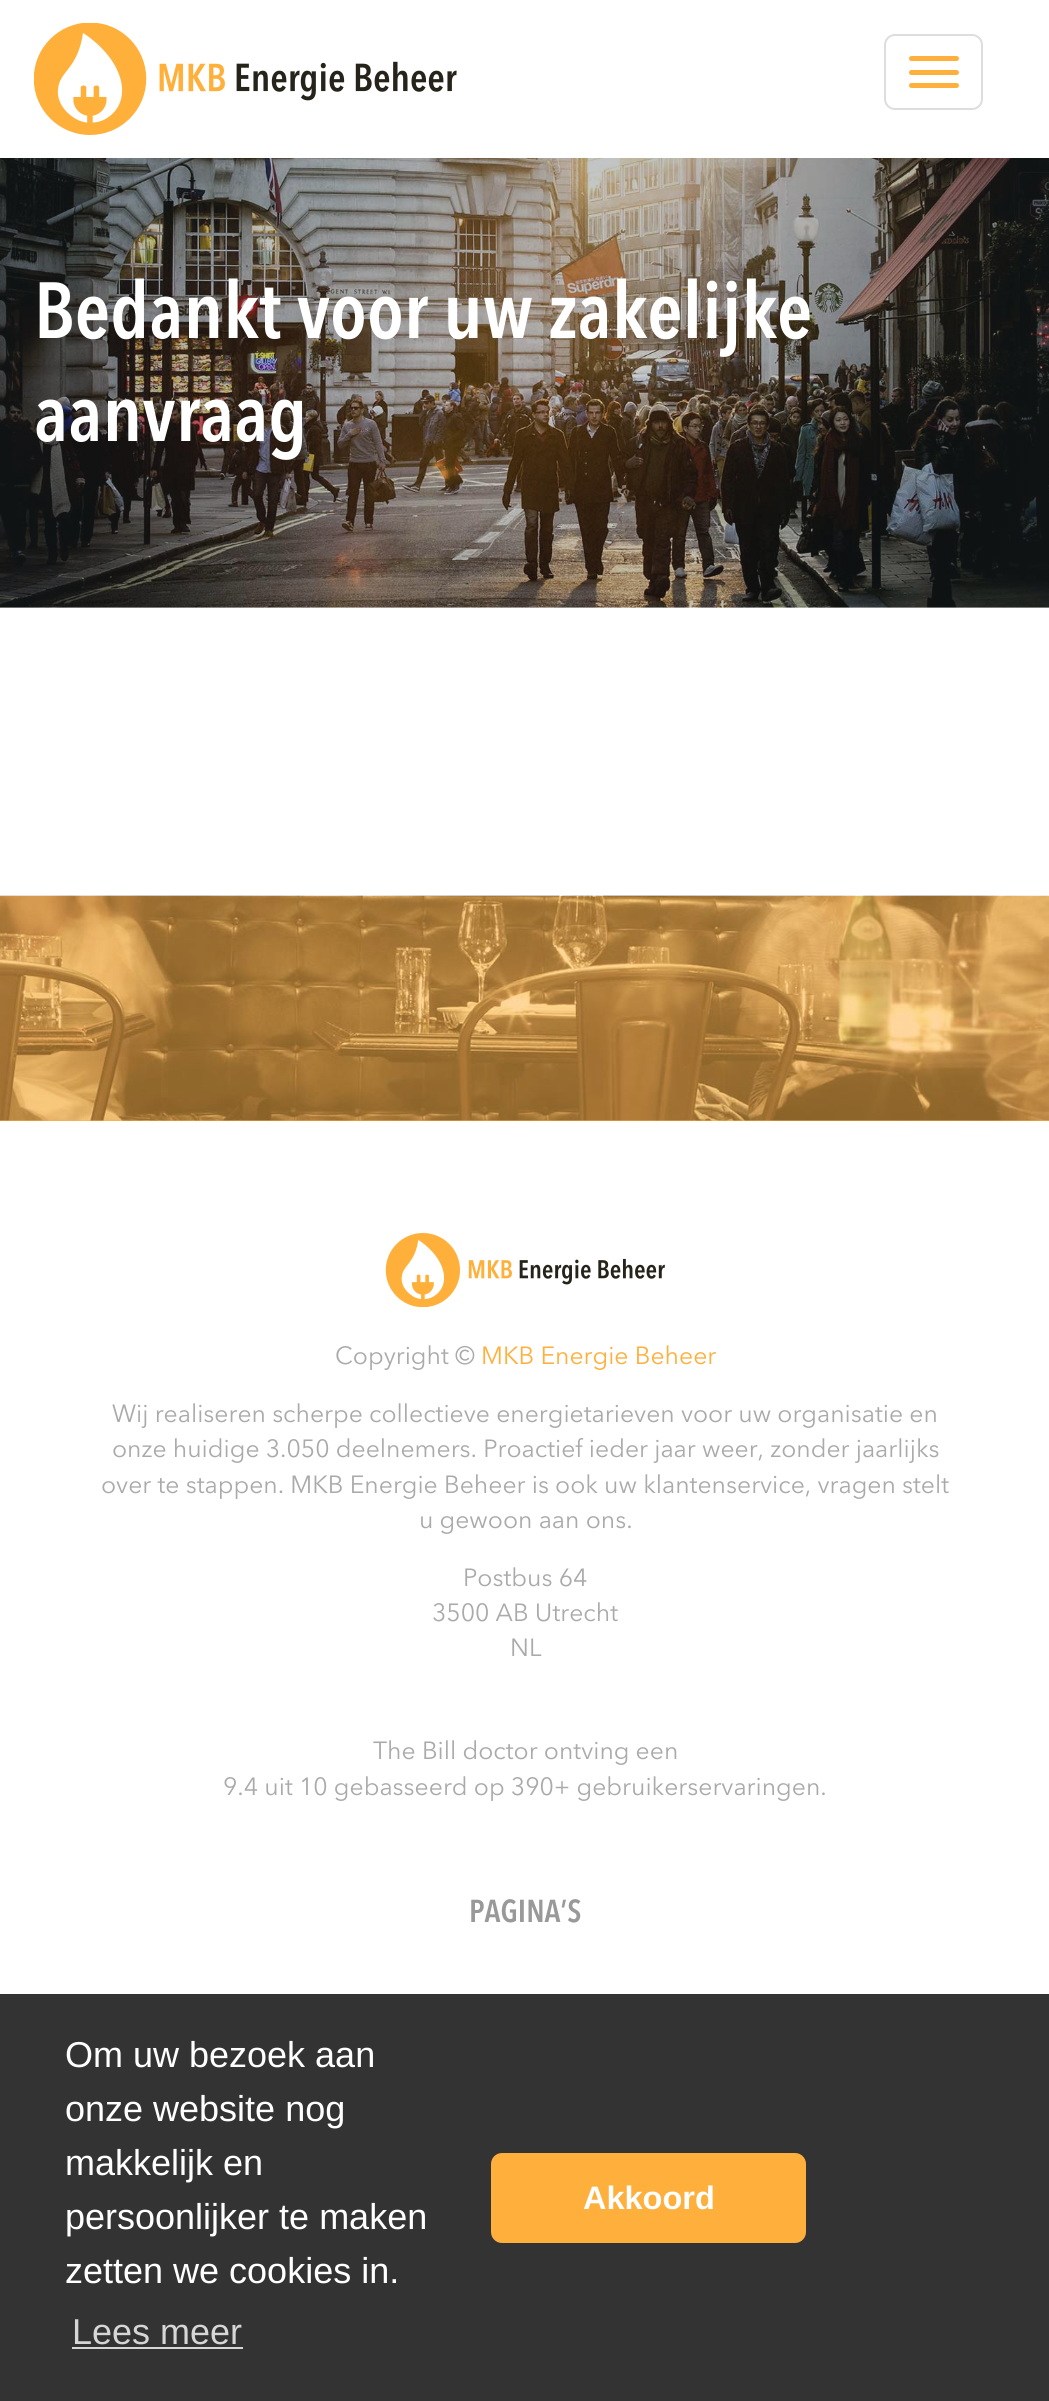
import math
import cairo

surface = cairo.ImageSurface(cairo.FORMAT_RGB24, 1049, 2401)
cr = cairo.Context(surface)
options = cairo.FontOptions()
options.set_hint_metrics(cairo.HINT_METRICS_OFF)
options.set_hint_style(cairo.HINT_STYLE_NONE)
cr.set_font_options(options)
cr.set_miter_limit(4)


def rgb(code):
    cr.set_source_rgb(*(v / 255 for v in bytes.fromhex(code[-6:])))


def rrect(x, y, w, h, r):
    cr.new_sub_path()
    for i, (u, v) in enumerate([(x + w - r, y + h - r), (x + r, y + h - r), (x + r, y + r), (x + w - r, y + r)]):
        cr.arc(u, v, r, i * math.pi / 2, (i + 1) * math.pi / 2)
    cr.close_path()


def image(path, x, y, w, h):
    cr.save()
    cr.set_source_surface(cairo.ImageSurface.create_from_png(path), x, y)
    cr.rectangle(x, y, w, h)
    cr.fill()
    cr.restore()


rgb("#ffffff")
cr.paint()
image("img/1.png", 34, 23, 423, 112)
rrect(885, 35, 97, 74, 10)
rgb("#dddddd")
cr.stroke()
rgb("#ffaf3c")
rrect(909, 56, 50, 5, 2.5)
cr.fill()
rrect(909, 70, 50, 5, 2.5)
cr.fill()
rrect(909, 83, 50, 5, 2.5)
cr.fill()
image("img/2.png", 0, 158, 1049, 450)
cr.rectangle(0, 896, 1049, 225)
cr.fill()
image("img/3.png", 0, 895, 1049, 226)
image("img/4.png", 385, 1233, 280, 74)
rgb("#333333")
cr.rectangle(0, 1994, 1049, 407)
cr.fill()
rgb("#d6d6d6")
cr.rectangle(72, 2347, 171, 2)
cr.fill()
rgb("#ffaf3c")
rrect(491, 2153, 315, 90, 11)
cr.fill()
cr.select_font_face("Avenir Next SemiBold")
cr.set_font_size(78.75)
rgb("#ffffff")
cr.move_to(34, 338)
cr.show_text("Bedankt voor uw zakelijke")
cr.move_to(34, 441)
cr.show_text("aanvraag")
cr.select_font_face("Avenir Next")
cr.set_font_size(24.75)
rgb("#aaaaaa")
cr.move_to(335, 1364)
cr.show_text("Copyright ©")
rgb("#ffaf3c")
cr.move_to(481, 1364)
cr.show_text("MKB Energie Beheer")
rgb("#aaaaaa")
for x, y, s in [
    (112, 1422, "Wij realiseren scherpe collectieve energietarieven voor uw organisatie en"),
    (112, 1457, "onze huidige 3.050 deelnemers. Proactief ieder jaar weer, zonder jaarlijks"),
    (101, 1493, "over te stappen. MKB Energie Beheer is ook uw klantenservice, vragen stelt"),
    (419, 1528, "u gewoon aan ons."),
    (463, 1586, "Postbus 64"),
    (432, 1621, "3500 AB Utrecht"),
    (510, 1656, "NL"),
    (373, 1759, "The Bill doctor ontving een"),
    (223, 1795, "9.4 uit 10 gebasseerd op 390+ gebruikerservaringen."),
]:
    cr.move_to(x, y)
    cr.show_text(s)
cr.select_font_face("Avenir Next SemiBold")
cr.set_font_size(31.5)
rgb("#999999")
cr.move_to(469, 1922)
cr.show_text("PAGINA’S")
cr.select_font_face("Liberation Sans")
cr.set_font_size(36)
rgb("#ffffff")
for x, y, s in [
    (65, 2067, "Om uw bezoek aan"),
    (65, 2121, "onze website nog"),
    (65, 2175, "makkelijk en"),
    (65, 2229, "persoonlijker te maken"),
    (65, 2283, "zetten we cookies in."),
]:
    cr.move_to(x, y)
    cr.show_text(s)
rgb("#d6d6d6")
cr.move_to(72, 2344)
cr.show_text("Lees meer")
cr.select_font_face("Liberation Sans", cairo.FONT_SLANT_NORMAL, cairo.FONT_WEIGHT_BOLD)
cr.set_font_size(32.5)
rgb("#ffffff")
cr.move_to(583, 2209)
cr.show_text("Akkoord")
surface.write_to_png("page.png")
